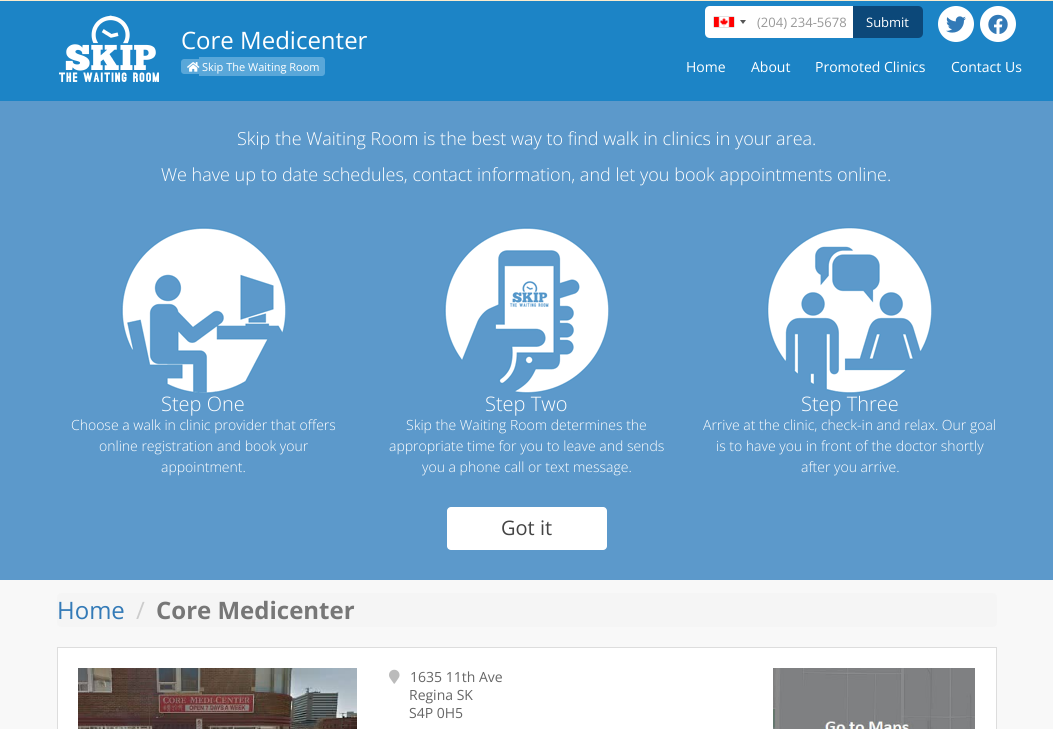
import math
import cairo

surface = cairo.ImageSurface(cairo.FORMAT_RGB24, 1053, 729)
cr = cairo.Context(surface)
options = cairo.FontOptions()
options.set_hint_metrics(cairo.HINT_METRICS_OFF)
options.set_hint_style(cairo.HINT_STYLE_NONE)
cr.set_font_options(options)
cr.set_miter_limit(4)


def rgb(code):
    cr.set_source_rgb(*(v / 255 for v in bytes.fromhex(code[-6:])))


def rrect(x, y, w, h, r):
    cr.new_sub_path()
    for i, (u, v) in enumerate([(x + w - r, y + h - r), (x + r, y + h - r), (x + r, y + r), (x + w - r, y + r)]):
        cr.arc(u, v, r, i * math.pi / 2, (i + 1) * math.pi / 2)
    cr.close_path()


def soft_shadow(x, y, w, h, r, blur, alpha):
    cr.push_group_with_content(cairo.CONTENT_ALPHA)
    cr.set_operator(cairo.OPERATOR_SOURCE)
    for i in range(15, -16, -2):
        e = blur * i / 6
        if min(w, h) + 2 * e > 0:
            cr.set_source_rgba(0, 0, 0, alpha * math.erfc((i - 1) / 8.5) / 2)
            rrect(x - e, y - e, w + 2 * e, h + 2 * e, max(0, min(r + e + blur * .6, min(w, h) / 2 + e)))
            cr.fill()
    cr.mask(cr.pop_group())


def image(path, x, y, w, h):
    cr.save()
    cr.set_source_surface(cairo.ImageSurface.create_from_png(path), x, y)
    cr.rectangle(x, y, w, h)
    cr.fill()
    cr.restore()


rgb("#f8f8f8")
cr.paint()
cr.rectangle(0.5, -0.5, 1052, 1)
rgb("#faebcc")
cr.set_line_width(1)
cr.stroke()
rgb("#1c84c6")
cr.rectangle(0, 1, 1053, 100)
cr.fill()
image("img/1.png", 59, 15, 100, 67)
rgb("#ffffff")
cr.new_path()
cr.move_to(710, 6)
cr.line_to(855, 6)
cr.line_to(855, 38)
cr.line_to(710, 38)
cr.curve_to(707, 38, 705, 36, 705, 33)
cr.line_to(705, 11)
cr.curve_to(705, 8, 707, 6, 710, 6)
cr.close_path()
cr.fill()
rgb("#888888")
soft_shadow(714, 17, 20, 10, 0, 0.5, 1)
image("img/2.png", 714, 17, 20, 10)
rgb("#555555")
cr.new_path()
cr.move_to(740, 20)
cr.line_to(746, 20)
cr.line_to(743, 24)
cr.close_path()
cr.fill()
rgb("#0c4879")
cr.new_path()
cr.move_to(853, 6)
cr.line_to(918, 6)
cr.curve_to(921, 6, 923, 8, 923, 11)
cr.line_to(923, 33)
cr.curve_to(923, 36, 921, 38, 918, 38)
cr.line_to(853, 38)
cr.close_path()
cr.fill()
rgb("#ffffff")
cr.arc(956, 24, 18, 0, 2 * math.pi)
cr.fill()
image("img/3.png", 946, 16, 20, 17)
cr.arc(998, 24, 18, 0, 2 * math.pi)
cr.fill()
image("img/4.png", 988, 14, 20, 20)
rgb("#59a7d9")
cr.new_path()
cr.move_to(184, 59)
cr.line_to(199, 59)
cr.line_to(199, 74)
cr.line_to(184, 74)
cr.curve_to(182.5, 74, 181, 72.5, 181, 71)
cr.line_to(181, 62)
cr.curve_to(181, 60.5, 182.5, 59, 184, 59)
cr.close_path()
cr.fill()
cr.new_path()
cr.move_to(199, 57)
cr.line_to(322, 57)
cr.curve_to(323.5, 57, 325, 58.5, 325, 60)
cr.line_to(325, 73)
cr.curve_to(325, 74.5, 323.5, 76, 322, 76)
cr.line_to(199, 76)
cr.close_path()
cr.fill()
image("img/5.png", 187, 62, 13, 10)
rgb("#5c99cb")
cr.rectangle(0, 101, 1053, 479)
cr.fill()
image("img/6.png", 121, 227, 165, 167)
image("img/7.png", 444, 227, 165, 167)
image("img/8.png", 767, 227, 165, 167)
rgb("#ffffff")
rrect(447, 507, 160, 43, 4)
cr.fill()
rgb("#f5f5f5")
rrect(57, 593, 940, 34, 4)
cr.fill()
rgb("#ffffff")
cr.rectangle(57.5, 647.5, 939, 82)
cr.fill_preserve()
rgb("#dddddd")
cr.stroke()
image("img/9.png", 78, 668, 279, 61)
image("img/10.png", 389, 669, 11, 15)
image("img/11.png", 773, 668, 202, 61)
cr.select_font_face("Open Sans")
cr.set_font_size(13)
rgb("#999999")
cr.move_to(757, 27)
cr.show_text("(204) 234-5678")
rgb("#ffffff")
cr.move_to(866, 27)
cr.show_text("Submit")
cr.set_font_size(24)
cr.move_to(181, 49)
cr.show_text("Core Medicenter")
cr.set_font_size(11)
cr.move_to(202, 71)
cr.show_text("Skip The Waiting Room")
cr.set_font_size(14)
for x, y, s in [
    (686, 72, "Home"),
    (751, 72, "About"),
    (815, 72, "Promoted Clinics"),
    (951, 72, "Contact Us"),
]:
    cr.move_to(x, y)
    cr.show_text(s)
cr.select_font_face("Open Sans Light")
cr.set_font_size(18)
cr.move_to(237, 145)
cr.show_text("Skip the Waiting Room is the best way to find walk in clinics in your area.")
cr.move_to(161, 181)
cr.show_text("We have up to date schedules, contact information, and let you book appointments online.")
cr.set_font_size(20)
cr.move_to(161, 411)
cr.show_text("Step One")
cr.set_font_size(14)
for x, y, s in [
    (71, 430, "Choose a walk in clinic provider that offers"),
    (99, 451, "online registration and book your"),
    (161, 472, "appointment."),
]:
    cr.move_to(x, y)
    cr.show_text(s)
cr.set_font_size(20)
cr.move_to(485, 411)
cr.show_text("Step Two")
cr.set_font_size(14)
for x, y, s in [
    (406, 430, "Skip the Waiting Room determines the"),
    (389, 451, "appropriate time for you to leave and sends"),
    (422, 472, "you a phone call or text message."),
]:
    cr.move_to(x, y)
    cr.show_text(s)
cr.set_font_size(20)
cr.move_to(801, 411)
cr.show_text("Step Three")
cr.set_font_size(14)
for x, y, s in [
    (703, 430, "Arrive at the clinic, check-in and relax. Our goal"),
    (716, 451, "is to have you in front of the doctor shortly"),
    (801, 472, "after you arrive."),
]:
    cr.move_to(x, y)
    cr.show_text(s)
cr.select_font_face("Open Sans")
cr.set_font_size(20)
rgb("#444444")
cr.move_to(501, 535)
cr.show_text("Got it")
cr.set_font_size(24)
rgb("#337ab7")
cr.move_to(57, 619)
cr.show_text("Home")
rgb("#cccccc")
cr.move_to(136, 619)
cr.show_text("/")
cr.select_font_face("Open Sans", cairo.FONT_SLANT_NORMAL, cairo.FONT_WEIGHT_BOLD)
rgb("#777777")
cr.move_to(156, 619)
cr.show_text("Core Medicenter")
cr.select_font_face("Open Sans")
cr.set_font_size(14)
rgb("#666666")
for x, y, s in [
    (410, 682, "1635 11th Ave"),
    (409, 700, "Regina SK"),
    (409, 718, "S4P 0H5"),
]:
    cr.move_to(x, y)
    cr.show_text(s)
surface.write_to_png("page.png")
